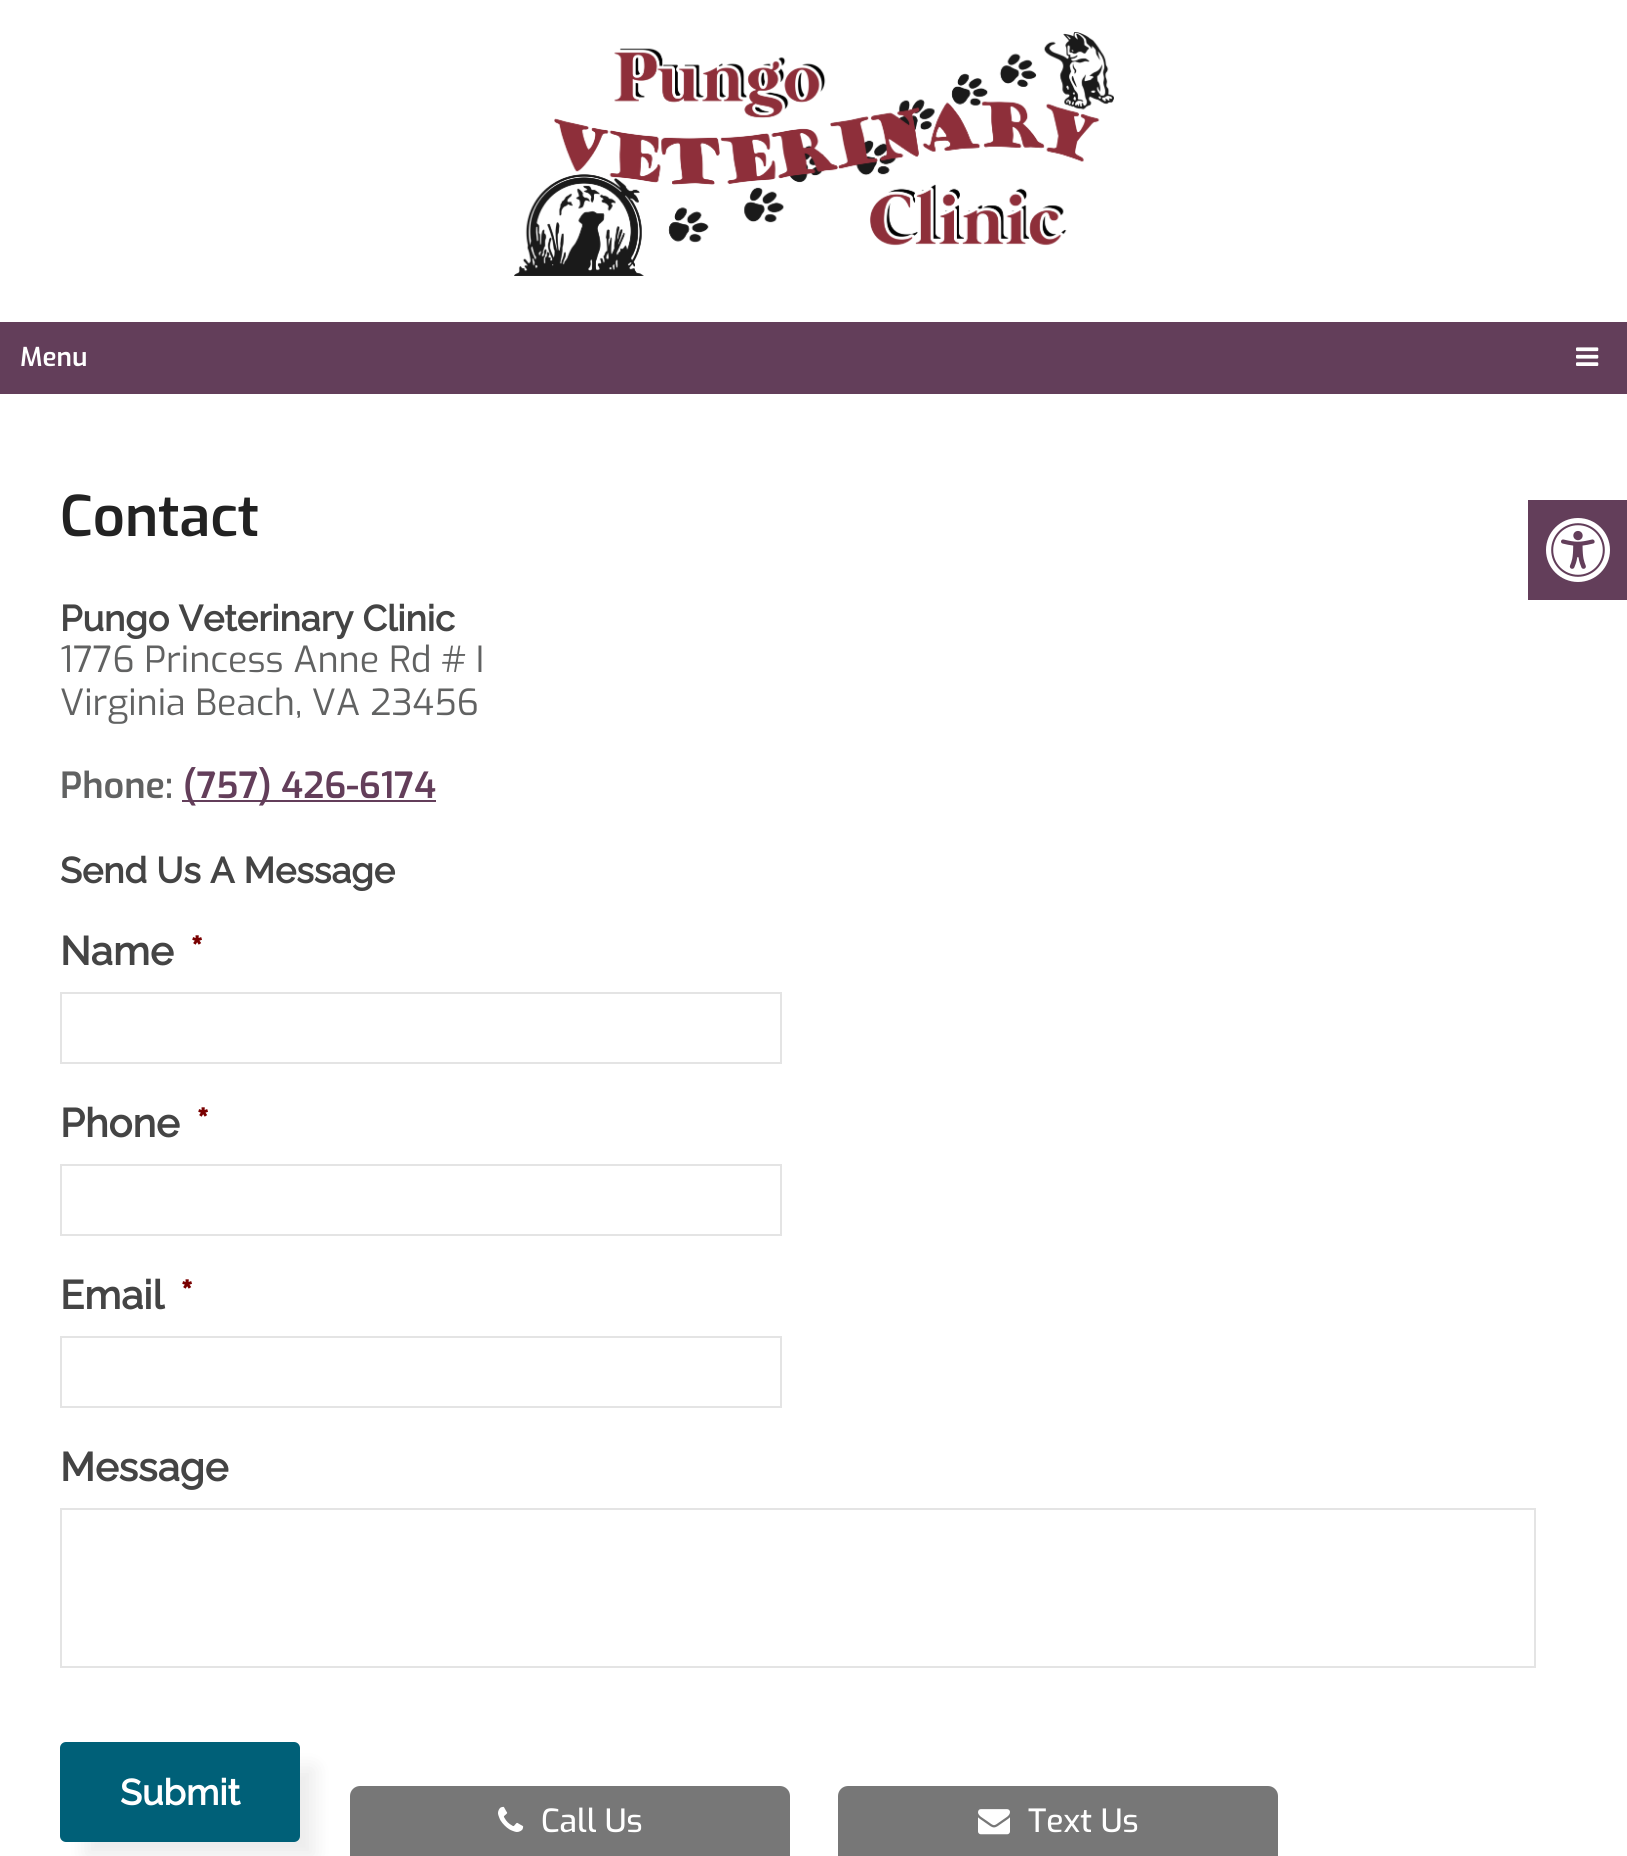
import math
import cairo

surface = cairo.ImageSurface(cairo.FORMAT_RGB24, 1627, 1856)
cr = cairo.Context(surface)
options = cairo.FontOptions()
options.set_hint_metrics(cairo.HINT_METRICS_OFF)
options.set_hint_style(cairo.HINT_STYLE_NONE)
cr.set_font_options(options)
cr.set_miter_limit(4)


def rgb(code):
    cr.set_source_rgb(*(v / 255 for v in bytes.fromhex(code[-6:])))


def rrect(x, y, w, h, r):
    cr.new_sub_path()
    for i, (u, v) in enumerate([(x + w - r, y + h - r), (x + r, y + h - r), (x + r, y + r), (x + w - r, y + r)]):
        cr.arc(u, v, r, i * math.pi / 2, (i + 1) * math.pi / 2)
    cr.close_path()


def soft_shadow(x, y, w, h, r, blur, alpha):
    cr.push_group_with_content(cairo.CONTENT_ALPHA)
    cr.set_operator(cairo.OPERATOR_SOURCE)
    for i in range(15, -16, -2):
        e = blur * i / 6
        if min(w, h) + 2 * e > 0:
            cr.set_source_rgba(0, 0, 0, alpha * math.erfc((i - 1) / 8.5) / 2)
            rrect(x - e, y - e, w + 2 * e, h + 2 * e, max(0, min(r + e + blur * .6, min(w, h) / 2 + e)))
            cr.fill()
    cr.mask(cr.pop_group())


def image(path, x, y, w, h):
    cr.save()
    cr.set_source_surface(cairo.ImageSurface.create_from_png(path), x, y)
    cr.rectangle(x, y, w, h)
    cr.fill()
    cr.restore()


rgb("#ffffff")
cr.paint()
image("img/1.png", 514, 32, 600, 244)
rgb("#633e5a")
cr.rectangle(0, 322, 1627, 72)
cr.fill()
image("img/2.png", 1576, 347, 23, 19)
cr.rectangle(182, 800, 254, 2)
cr.fill()
cr.rectangle(61, 993, 720, 70)
rgb("#e4e4e4")
cr.stroke()
cr.rectangle(61, 1165, 720, 70)
cr.stroke()
cr.rectangle(61, 1337, 720, 70)
cr.stroke()
cr.rectangle(61, 1509, 1474, 158)
cr.stroke()
rgb("#000000")
soft_shadow(86, 1768, 228, 88, 0, 10, 0.08)
rgb("#006078")
rrect(60, 1742, 240, 100, 6)
cr.fill()
rgb("#633e5a")
cr.rectangle(1528, 500, 99, 100)
cr.fill()
image("img/3.png", 1546, 518, 64, 64)
rgb("#777777")
cr.new_path()
cr.move_to(360, 1786)
cr.line_to(780, 1786)
cr.curve_to(785.5, 1786, 790, 1790.5, 790, 1796)
cr.line_to(790, 1856)
cr.line_to(350, 1856)
cr.line_to(350, 1796)
cr.curve_to(350, 1790.5, 354.5, 1786, 360, 1786)
cr.close_path()
cr.fill()
image("img/4.png", 498, 1806, 26, 26)
cr.new_path()
cr.move_to(848, 1786)
cr.line_to(1268, 1786)
cr.curve_to(1273.5, 1786, 1278, 1790.5, 1278, 1796)
cr.line_to(1278, 1856)
cr.line_to(838, 1856)
cr.line_to(838, 1796)
cr.curve_to(838, 1790.5, 842.5, 1786, 848, 1786)
cr.close_path()
cr.fill()
image("img/5.png", 978, 1809, 32, 26)
cr.select_font_face("Exo SemiBold")
cr.set_font_size(26)
rgb("#ffffff")
cr.move_to(20, 366)
cr.show_text("Menu")
cr.set_font_size(56)
rgb("#222222")
cr.move_to(60, 536)
cr.show_text("Contact")
cr.select_font_face("Raleway", cairo.FONT_SLANT_NORMAL, cairo.FONT_WEIGHT_BOLD)
cr.set_font_size(36)
rgb("#444444")
cr.move_to(60, 631)
cr.show_text("Pungo Veterinary Clinic")
cr.select_font_face("Exo")
rgb("#616262")
cr.move_to(60, 672)
cr.show_text("1776 Princess Anne Rd # I")
cr.move_to(60, 715)
cr.show_text("Virginia Beach, VA 23456")
cr.select_font_face("Exo SemiBold")
cr.move_to(60, 798)
cr.show_text("Phone:")
rgb("#633e5a")
cr.move_to(183, 798)
cr.show_text("(757) 426-6174")
cr.select_font_face("Raleway", cairo.FONT_SLANT_NORMAL, cairo.FONT_WEIGHT_BOLD)
rgb("#444444")
cr.move_to(60, 883)
cr.show_text("Send Us A Message")
cr.set_font_size(40)
cr.move_to(60, 965)
cr.show_text("Name")
rgb("#790000")
cr.move_to(190, 965)
cr.show_text("*")
rgb("#444444")
cr.move_to(60, 1137)
cr.show_text("Phone")
rgb("#790000")
cr.move_to(196, 1137)
cr.show_text("*")
rgb("#444444")
cr.move_to(60, 1309)
cr.show_text("Email")
rgb("#790000")
cr.move_to(180, 1309)
cr.show_text("*")
rgb("#444444")
cr.move_to(60, 1481)
cr.show_text("Message")
cr.set_font_size(36)
rgb("#ffffff")
cr.move_to(120, 1805)
cr.show_text("Submit")
cr.select_font_face("Exo Medium")
cr.set_font_size(32)
cr.move_to(541, 1832)
cr.show_text("Call Us")
cr.move_to(1028, 1832)
cr.show_text("Text Us")
surface.write_to_png("page.png")
